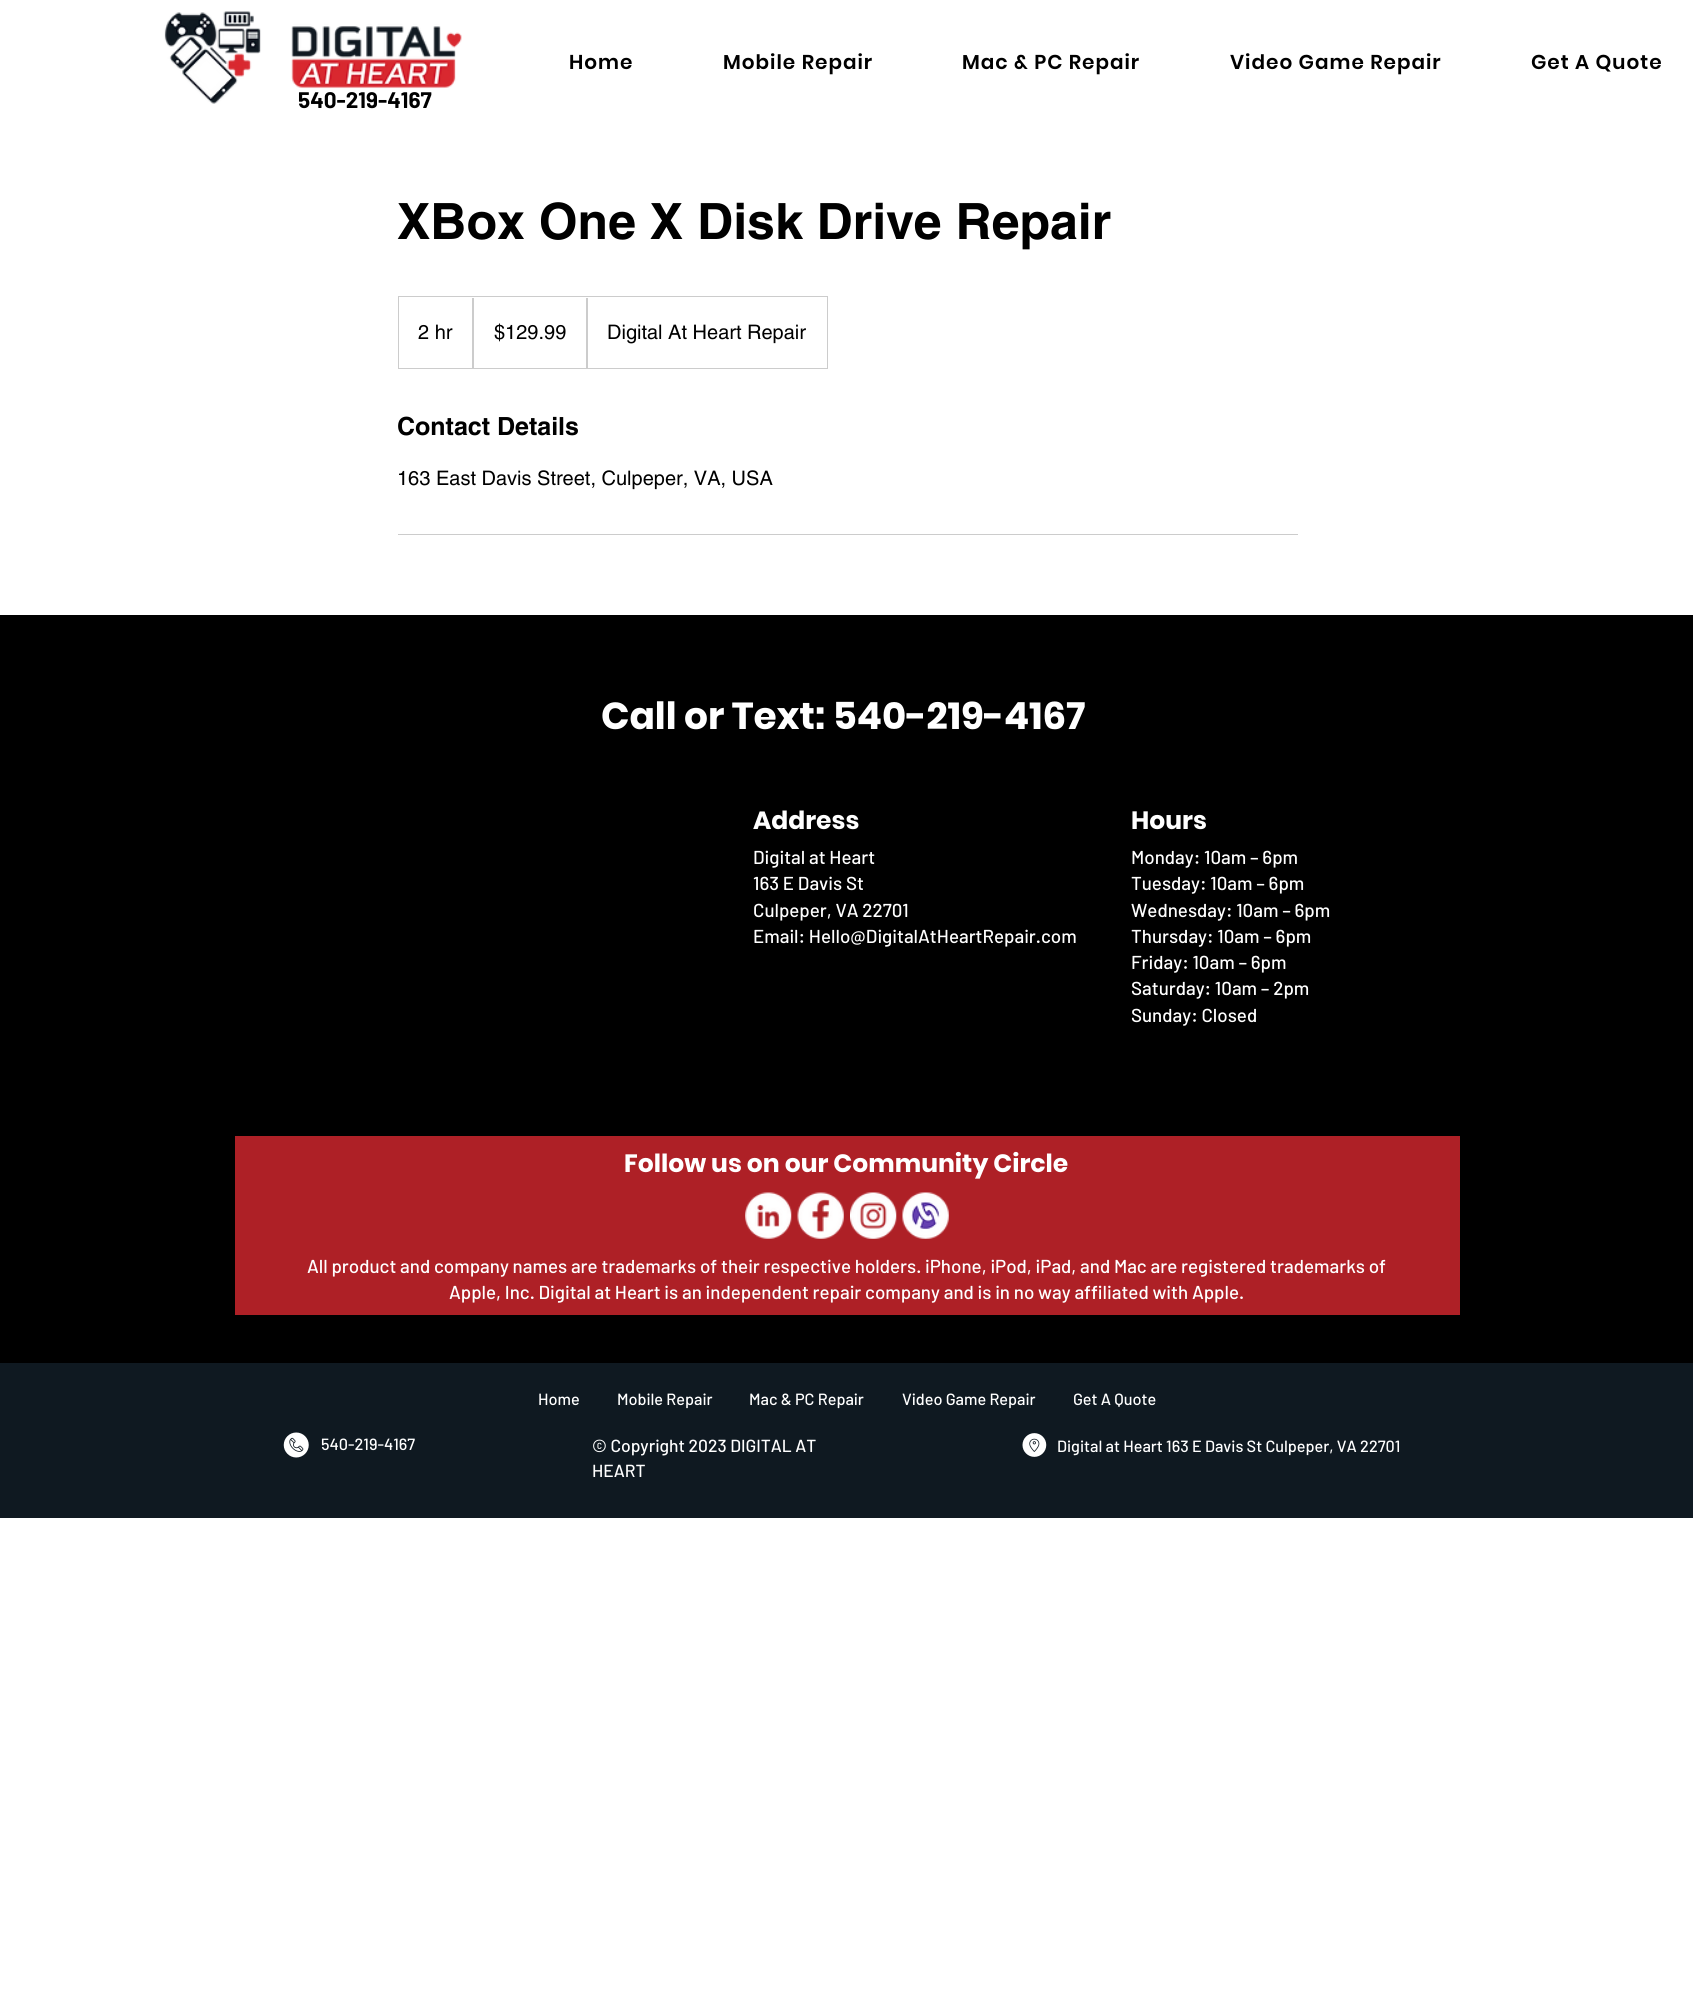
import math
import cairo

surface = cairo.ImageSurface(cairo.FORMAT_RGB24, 1693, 1997)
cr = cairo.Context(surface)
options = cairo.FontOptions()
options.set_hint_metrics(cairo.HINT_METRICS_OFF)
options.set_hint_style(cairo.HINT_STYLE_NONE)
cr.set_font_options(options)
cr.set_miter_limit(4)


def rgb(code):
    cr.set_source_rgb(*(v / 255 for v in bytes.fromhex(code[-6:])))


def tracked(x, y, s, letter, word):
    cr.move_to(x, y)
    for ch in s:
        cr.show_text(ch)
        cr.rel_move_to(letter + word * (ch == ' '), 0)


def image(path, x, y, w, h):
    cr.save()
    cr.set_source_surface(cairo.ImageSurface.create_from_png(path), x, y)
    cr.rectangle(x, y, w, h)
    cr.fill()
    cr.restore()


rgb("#ffffff")
cr.paint()
image("img/1.png", 164, 11, 298, 93)
cr.rectangle(398.5, 296.5, 429, 72)
rgb("#cccccc")
cr.set_line_width(1)
cr.stroke()
cr.save()
cr.rectangle(399, 298, 427, 70)
cr.clip()
cr.new_path()
cr.move_to(472, 368)
cr.line_to(472, 296)
cr.line_to(474, 298)
cr.line_to(474, 368)
cr.close_path()
cr.fill()
cr.new_path()
cr.move_to(586, 368)
cr.line_to(586, 296)
cr.line_to(588, 298)
cr.line_to(588, 368)
cr.close_path()
cr.fill()
cr.restore()
for x, y, w, h, color in [
    (398, 534, 900, 1, "#cccccc"),
    (0, 615, 1693, 748, "#000000"),
    (235, 1136, 1225, 179, "#ae2026"),
]:
    rgb(color)
    cr.rectangle(x, y, w, h)
    cr.fill()
image("img/2.png", 745, 1192, 47, 47)
image("img/3.png", 797, 1192, 47, 47)
image("img/4.png", 850, 1192, 47, 47)
image("img/5.png", 902, 1192, 47, 47)
rgb("#0f1921")
cr.rectangle(0, 1363, 1693, 155)
cr.fill()
image("img/6.png", 283, 1432, 26, 26)
image("img/7.png", 1022, 1433, 25, 24)
cr.select_font_face("Poppins SemiBold")
cr.set_font_size(20)
rgb("#000000")
for x, y, s in [
    (569, 69, "Home"),
    (723, 69, "Mobile Repair"),
    (962, 69, "Mac & PC Repair"),
    (1230, 69, "Video Game Repair"),
    (1531, 69, "Get A Quote"),
]:
    tracked(x, y, s, 1, 0)
cr.select_font_face("Barlow", cairo.FONT_SLANT_NORMAL, cairo.FONT_WEIGHT_BOLD)
cr.set_font_size(22.5)
cr.move_to(298, 108)
cr.show_text("540-219-4167")
cr.select_font_face("helvetica", cairo.FONT_SLANT_NORMAL, cairo.FONT_WEIGHT_BOLD)
cr.set_font_size(50)
cr.move_to(397, 239)
cr.show_text("XBox One X Disk Drive Repair")
cr.select_font_face("helvetica")
cr.set_font_size(20)
for x, y, s in [
    (418, 339, "2 hr"),
    (494, 339, "$129.99"),
    (607, 339, "Digital At Heart Repair"),
]:
    cr.move_to(x, y)
    cr.show_text(s)
cr.select_font_face("helvetica", cairo.FONT_SLANT_NORMAL, cairo.FONT_WEIGHT_BOLD)
cr.set_font_size(25)
cr.move_to(397, 435)
cr.show_text("Contact Details")
cr.select_font_face("helvetica")
cr.set_font_size(20)
cr.move_to(397, 485)
cr.show_text("163 East Davis Street, Culpeper, VA, USA")
cr.select_font_face("Poppins", cairo.FONT_SLANT_NORMAL, cairo.FONT_WEIGHT_BOLD)
cr.set_font_size(37.5)
rgb("#ffffff")
cr.move_to(601, 729)
cr.show_text("Call or Text: 540-219-4167")
cr.set_font_size(25)
cr.move_to(753, 829)
cr.show_text("Address")
cr.move_to(1131, 829)
cr.show_text("Hours")
cr.select_font_face("Barlow Medium")
cr.set_font_size(18.75)
for x, y, s in [
    (753, 864, "Digital at Heart"),
    (753, 890, "163 E Davis St"),
    (753, 917, "Culpeper, VA 22701"),
    (753, 943, "Email: Hello@DigitalAtHeartRepair.com"),
    (1131, 864, "Monday: 10am – 6pm"),
    (1131, 890, "Tuesday: 10am – 6pm"),
    (1131, 917, "Wednesday: 10am – 6pm"),
    (1131, 943, "Thursday: 10am – 6pm"),
    (1131, 969, "Friday: 10am – 6pm"),
    (1131, 995, "Saturday: 10am – 2pm"),
    (1131, 1022, "Sunday: Closed"),
]:
    cr.move_to(x, y)
    cr.show_text(s)
cr.select_font_face("Poppins", cairo.FONT_SLANT_NORMAL, cairo.FONT_WEIGHT_BOLD)
cr.set_font_size(25)
cr.move_to(624, 1172)
cr.show_text("Follow us on our Community Circle")
cr.select_font_face("Barlow Medium")
cr.set_font_size(18.75)
cr.move_to(307, 1273)
cr.show_text("All product and company names are trademarks of their respective holders. iPhone, iPod, iPad, and Mac are registered trademarks of")
cr.move_to(449, 1299)
cr.show_text("Apple, Inc. Digital at Heart is an independent repair company and is in no way affiliated with Apple.")
cr.set_font_size(16.25)
for x, y, s in [
    (538, 1405, "Home"),
    (617, 1405, "Mobile Repair"),
    (749, 1405, "Mac & PC Repair"),
    (902, 1405, "Video Game Repair"),
    (1073, 1405, "Get A Quote"),
    (321, 1450, "540-219-4167"),
]:
    cr.move_to(x, y)
    cr.show_text(s)
cr.set_font_size(17.5)
cr.move_to(592, 1452)
cr.show_text("© Copyright 2023 DIGITAL AT")
cr.move_to(592, 1477)
cr.show_text("HEART")
cr.set_font_size(16.25)
cr.move_to(1057, 1452)
cr.show_text("Digital at Heart 163 E Davis St Culpeper, VA 22701")
surface.write_to_png("page.png")
